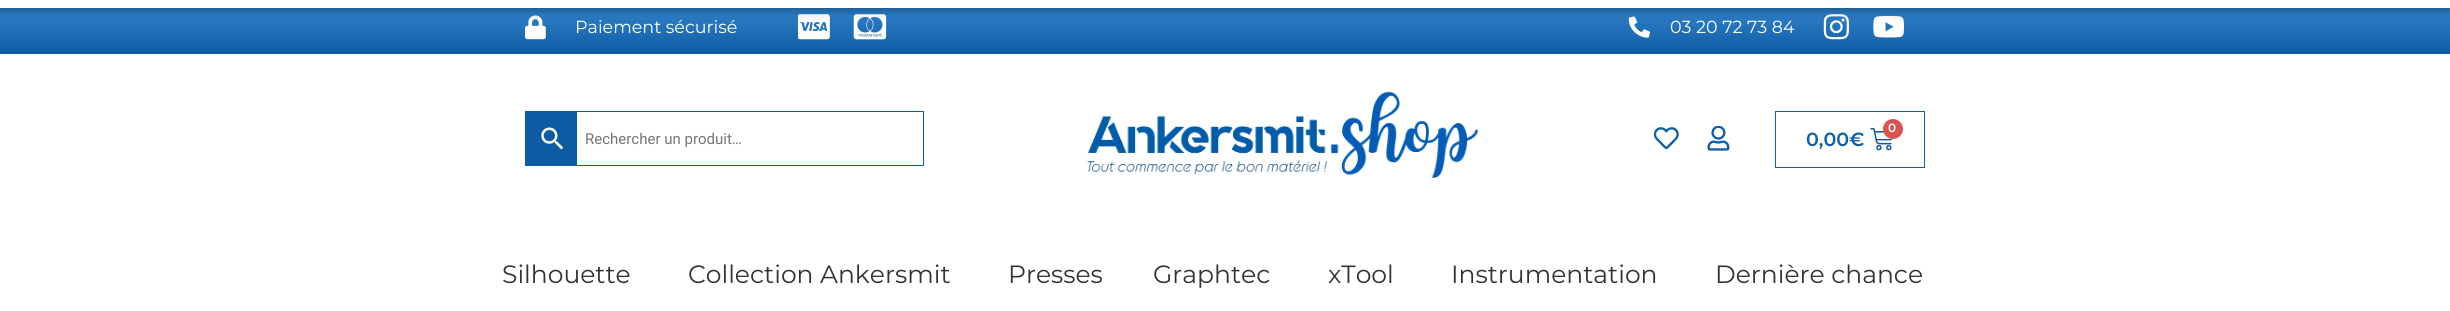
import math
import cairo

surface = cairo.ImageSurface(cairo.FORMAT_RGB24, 2450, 311)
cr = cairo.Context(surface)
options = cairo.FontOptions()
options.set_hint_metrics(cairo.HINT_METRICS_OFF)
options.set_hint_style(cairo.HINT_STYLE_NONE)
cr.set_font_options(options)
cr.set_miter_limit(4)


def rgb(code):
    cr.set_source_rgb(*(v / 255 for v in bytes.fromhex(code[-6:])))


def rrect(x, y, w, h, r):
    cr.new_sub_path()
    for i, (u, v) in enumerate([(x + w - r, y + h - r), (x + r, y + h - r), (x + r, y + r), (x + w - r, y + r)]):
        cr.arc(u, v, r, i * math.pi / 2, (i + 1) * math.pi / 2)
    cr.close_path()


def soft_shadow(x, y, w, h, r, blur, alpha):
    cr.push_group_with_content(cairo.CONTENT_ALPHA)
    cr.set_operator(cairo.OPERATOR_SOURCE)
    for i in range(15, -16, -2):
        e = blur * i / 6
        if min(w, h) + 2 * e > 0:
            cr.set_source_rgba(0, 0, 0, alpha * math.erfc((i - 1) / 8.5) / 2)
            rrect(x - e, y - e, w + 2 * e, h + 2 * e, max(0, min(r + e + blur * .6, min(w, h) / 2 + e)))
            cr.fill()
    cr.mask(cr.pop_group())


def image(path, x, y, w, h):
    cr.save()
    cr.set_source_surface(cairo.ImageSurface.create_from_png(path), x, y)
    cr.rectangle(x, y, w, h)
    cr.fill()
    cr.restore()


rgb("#ffffff")
cr.paint()
gradient = cairo.LinearGradient(1225, 0, 1225, 54)
gradient.add_color_stop_rgba(0.28, 0.169, 0.49, 0.773, 1)
gradient.add_color_stop_rgba(1, 0.059, 0.357, 0.639, 1)
cr.set_source(gradient)
cr.rectangle(0, 8, 2450, 46)
cr.fill()
image("img/1.png", 525, 15, 21, 25)
image("img/2.png", 798, 14, 32, 26)
image("img/3.png", 853, 14, 34, 26)
image("img/4.png", 1628, 16, 22, 22)
image("img/5.png", 1823, 14, 26, 26)
image("img/6.png", 1873, 15, 31, 23)
rgb("#000000")
soft_shadow(0, -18, 2450, 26, 0, 6, 0.5)
rgb("#ffffff")
cr.rectangle(0, 0, 2450, 8)
cr.fill()
rgb("#0d5ca3")
cr.rectangle(525, 111, 51, 55)
cr.fill()
image("img/7.png", 541, 127, 22, 23)
cr.rectangle(576.5, 111.5, 347, 54)
cr.set_line_width(1)
cr.stroke()
image("img/8.png", 1087, 91, 392, 87)
image("img/9.png", 1653, 127, 26, 22)
image("img/10.png", 1707, 126, 23, 25)
cr.rectangle(1775.5, 111.5, 149, 56)
rgb("#105faa")
cr.stroke()
image("img/11.png", 1870, 128, 23, 23)
rgb("#d9534f")
cr.arc(1893, 129, 10, 0, 2 * math.pi)
cr.fill()
cr.select_font_face("Montserrat")
cr.set_font_size(17.5)
rgb("#ffffff")
cr.move_to(575, 33)
cr.show_text("Paiement sécurisé")
cr.move_to(1670, 33)
cr.show_text("03 20 72 73 84")
cr.select_font_face("Roboto")
cr.set_font_size(15)
rgb("#757575")
cr.move_to(585, 144)
cr.show_text("Rechercher un produit…")
cr.select_font_face("Montserrat SemiBold")
cr.set_font_size(12)
rgb("#ffffff")
cr.move_to(1888, 132)
cr.show_text("0")
cr.set_font_size(19)
rgb("#105faa")
cr.move_to(1806, 146)
cr.show_text("0,00€")
cr.select_font_face("Montserrat")
cr.set_font_size(25)
rgb("#333333")
for x, y, s in [
    (502, 283, "Silhouette"),
    (688, 283, "Collection Ankersmit"),
    (1008, 283, "Presses"),
    (1153, 283, "Graphtec"),
    (1328, 283, "xTool"),
    (1451, 283, "Instrumentation"),
    (1715, 283, "Dernière chance"),
]:
    cr.move_to(x, y)
    cr.show_text(s)
surface.write_to_png("page.png")
